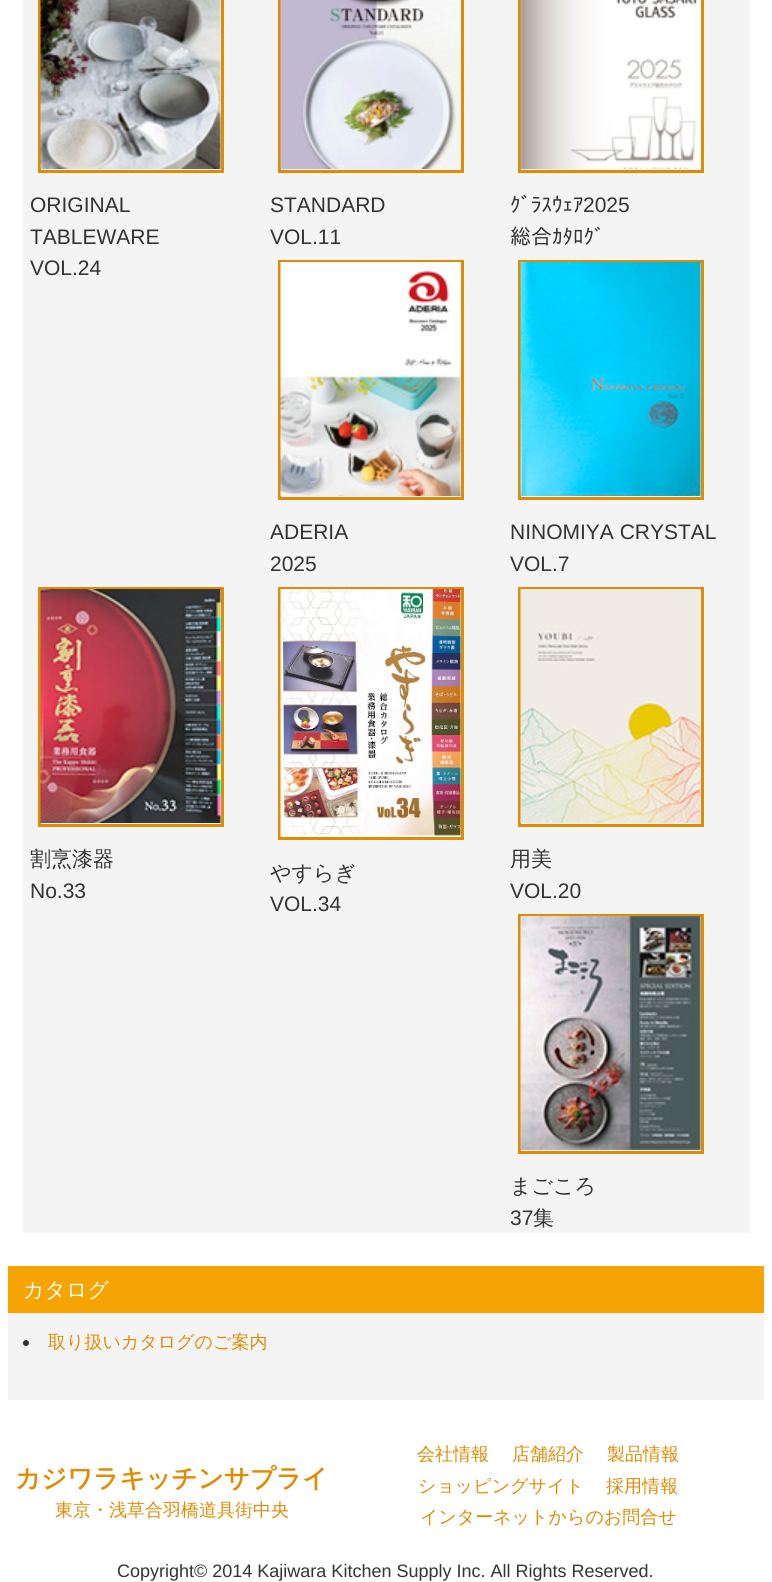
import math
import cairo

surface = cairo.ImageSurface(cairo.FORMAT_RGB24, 772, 1582)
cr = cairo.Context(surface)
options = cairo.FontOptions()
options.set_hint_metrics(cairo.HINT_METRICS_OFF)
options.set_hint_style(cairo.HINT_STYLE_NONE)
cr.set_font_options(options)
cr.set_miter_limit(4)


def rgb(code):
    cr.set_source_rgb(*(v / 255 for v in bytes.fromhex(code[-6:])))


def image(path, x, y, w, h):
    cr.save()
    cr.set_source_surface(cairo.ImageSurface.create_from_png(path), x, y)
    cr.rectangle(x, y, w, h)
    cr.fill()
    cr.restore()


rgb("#ffffff")
cr.paint()
rgb("#f4f4f4")
cr.rectangle(23, 0, 727, 1233)
cr.fill()
cr.rectangle(39.5, -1.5, 183, 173)
rgb("#df8b04")
cr.set_line_width(3)
cr.stroke()
image("img/1.png", 40, 0, 181, 169)
cr.rectangle(279.5, -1.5, 183, 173)
cr.stroke()
image("img/2.png", 280, 0, 181, 169)
cr.rectangle(519.5, -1.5, 183, 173)
cr.stroke()
image("img/3.png", 520, 0, 181, 169)
cr.rectangle(279.5, 261.5, 183, 237)
cr.stroke()
image("img/4.png", 280, 262, 181, 234)
cr.rectangle(519.5, 261.5, 183, 237)
cr.stroke()
image("img/5.png", 520, 262, 181, 234)
cr.rectangle(39.5, 588.5, 183, 237)
cr.stroke()
image("img/6.png", 40, 589, 181, 234)
cr.rectangle(279.5, 588.5, 183, 250)
cr.stroke()
image("img/7.png", 280, 589, 181, 248)
cr.rectangle(519.5, 588.5, 183, 237)
cr.stroke()
image("img/8.png", 520, 589, 181, 234)
cr.rectangle(519.5, 915.5, 183, 237)
cr.stroke()
image("img/9.png", 520, 916, 181, 234)
rgb("#f4f4f4")
cr.rectangle(8, 1313, 756, 87)
cr.fill()
rgb("#f6a401")
cr.rectangle(8, 1266, 756, 47)
cr.fill()
rgb("#333333")
cr.arc(26, 1343, 3, 0, 2 * math.pi)
cr.fill()
cr.select_font_face("Liberation Sans")
cr.set_font_size(21)
for x, y, s in [
    (30, 212, "ORIGINAL"),
    (30, 244, "TABLEWARE"),
    (30, 275, "VOL.24"),
    (270, 212, "STANDARD"),
    (270, 244, "VOL.11"),
]:
    cr.move_to(x, y)
    cr.show_text(s)
cr.select_font_face("IPAPGothic")
cr.move_to(510, 212)
cr.show_text("ｸﾞﾗｽｳｪｱ")
cr.select_font_face("Liberation Sans")
cr.move_to(583, 212)
cr.show_text("2025")
cr.select_font_face("IPAPGothic")
cr.move_to(510, 244)
cr.show_text("総合ｶﾀﾛｸﾞ")
cr.select_font_face("Liberation Sans")
for x, y, s in [
    (270, 539, "ADERIA"),
    (270, 571, "2025"),
    (510, 539, "NINOMIYA CRYSTAL"),
    (510, 571, "VOL.7"),
]:
    cr.move_to(x, y)
    cr.show_text(s)
cr.select_font_face("WenQuanYi Zen Hei Medium")
cr.move_to(30, 866)
cr.show_text("割烹漆器")
cr.select_font_face("Liberation Sans")
cr.move_to(30, 898)
cr.show_text("No.33")
cr.select_font_face("WenQuanYi Zen Hei Medium")
cr.move_to(270, 880)
cr.show_text("やすらぎ")
cr.select_font_face("Liberation Sans")
cr.move_to(270, 911)
cr.show_text("VOL.34")
cr.select_font_face("WenQuanYi Zen Hei Medium")
cr.move_to(510, 866)
cr.show_text("用美")
cr.select_font_face("Liberation Sans")
cr.move_to(510, 898)
cr.show_text("VOL.20")
cr.select_font_face("WenQuanYi Zen Hei Medium")
cr.move_to(510, 1193)
cr.show_text("まごころ")
cr.select_font_face("Liberation Sans")
cr.move_to(510, 1225)
cr.show_text("37")
cr.select_font_face("WenQuanYi Zen Hei Medium")
cr.move_to(533, 1225)
cr.show_text("集")
rgb("#ffffff")
cr.move_to(23, 1297)
cr.show_text("カタログ")
cr.set_font_size(18)
rgb("#df8b04")
for x, y, s in [
    (48, 1348, "取り扱いカタログのご案内"),
    (417, 1460, "会社情報"),
    (512, 1460, "店舗紹介"),
    (607, 1460, "製品情報"),
    (418, 1492, "ショッピングサイト"),
    (606, 1492, "採用情報"),
    (420, 1523, "インターネットからのお問合せ"),
]:
    cr.move_to(x, y)
    cr.show_text(s)
cr.select_font_face("Liberation Sans")
rgb("#333333")
cr.move_to(117, 1577)
cr.show_text("Copyright© 2014 Kajiwara Kitchen Supply Inc. All Rights Reserved.")
cr.select_font_face("WenQuanYi Zen Hei", cairo.FONT_SLANT_NORMAL, cairo.FONT_WEIGHT_BOLD)
cr.set_font_size(25.5)
rgb("#df8b04")
cr.move_to(15, 1487)
cr.show_text("カジワラキッチンサプライ")
cr.select_font_face("WenQuanYi Zen Hei Medium")
cr.set_font_size(18)
cr.move_to(55, 1516)
cr.show_text("東京・浅草合羽橋道具街中央")
surface.write_to_png("page.png")
